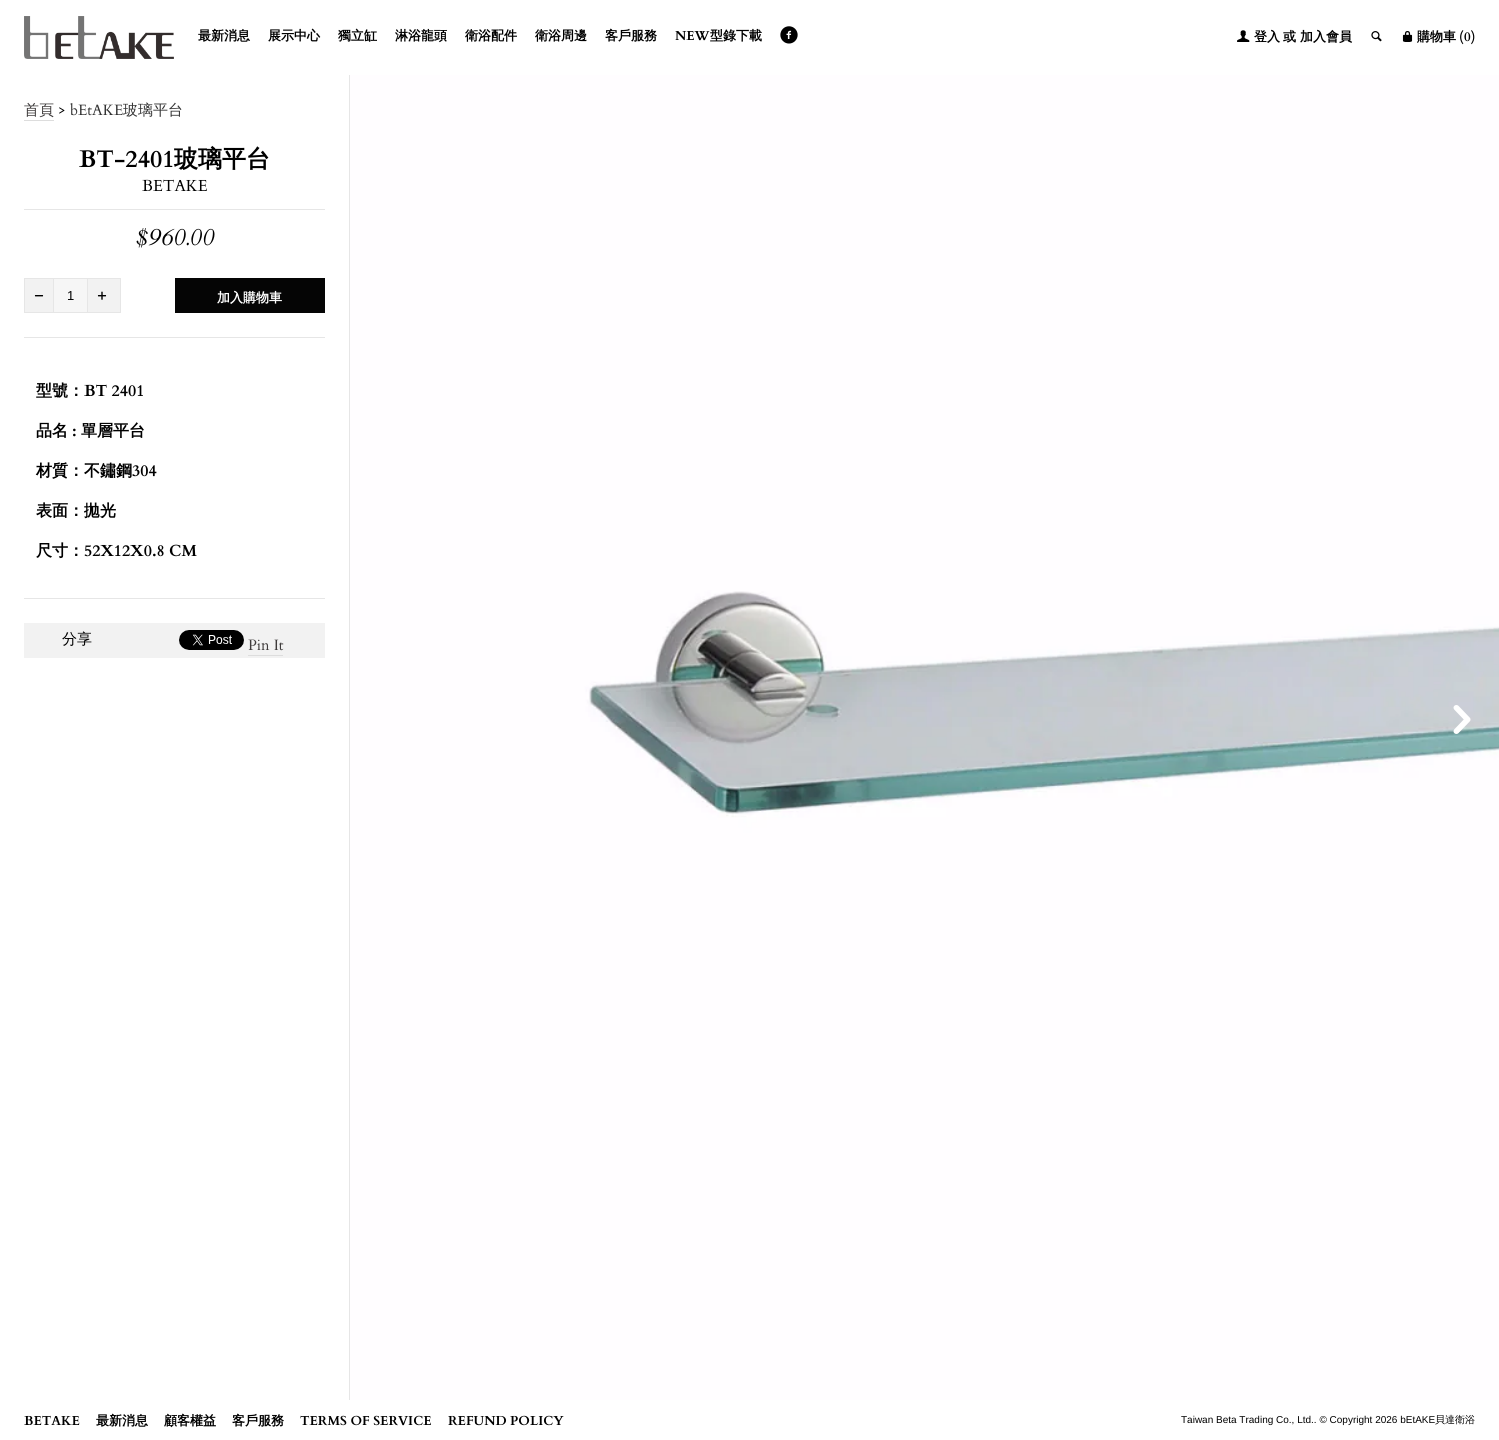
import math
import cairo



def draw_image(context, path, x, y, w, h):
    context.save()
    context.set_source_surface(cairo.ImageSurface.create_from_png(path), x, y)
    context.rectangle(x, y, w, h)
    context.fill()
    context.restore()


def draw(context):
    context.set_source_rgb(1, 1, 1)
    context.paint()
    draw_image(context, "images/1.png", 24, 16, 150, 43)
    draw_image(context, "images/2.png", 780, 26, 18, 18)
    draw_image(context, "images/3.png", 1237, 30, 13, 12)
    draw_image(context, "images/4.png", 1371, 31, 11, 11)
    draw_image(context, "images/5.png", 1402, 31, 11, 11)
    context.set_source_rgb(230 / 255, 230 / 255, 230 / 255)
    context.rectangle(349, 75, 1, 1325)
    context.fill()
    context.set_source_rgb(221 / 255, 221 / 255, 221 / 255)
    context.rectangle(24, 120, 30, 1)
    context.fill()
    context.set_source_rgb(230 / 255, 230 / 255, 230 / 255)
    context.rectangle(24, 209, 301, 1)
    context.fill()
    context.set_source_rgb(242 / 255, 242 / 255, 242 / 255)
    context.rectangle(24.5, 278.5, 96, 34)
    context.fill_preserve()
    context.set_source_rgb(230 / 255, 230 / 255, 230 / 255)
    context.set_line_width(1)
    context.stroke()
    draw_image(context, "images/6.png", 34, 295, 10, 2)
    context.set_source_rgb(246 / 255, 246 / 255, 246 / 255)
    context.rectangle(54, 279, 33, 33)
    context.fill()
    context.set_source_rgb(230 / 255, 230 / 255, 230 / 255)
    context.rectangle(87, 279, 1, 33)
    context.fill()
    context.rectangle(53, 279, 1, 33)
    context.fill()
    draw_image(context, "images/7.png", 97, 291, 10, 9)
    context.set_source_rgb(5 / 255, 5 / 255, 5 / 255)
    context.rectangle(175, 278, 150, 35)
    context.fill()
    context.set_source_rgb(230 / 255, 230 / 255, 230 / 255)
    context.rectangle(24, 337, 301, 1)
    context.fill()
    context.rectangle(24, 598, 301, 1)
    context.fill()
    context.set_source_rgb(242 / 255, 242 / 255, 242 / 255)
    context.rectangle(24, 623, 301, 35)
    context.fill()
    draw_image(context, "images/8.png", 179, 630, 65, 20)
    context.set_source_rgb(221 / 255, 221 / 255, 221 / 255)
    context.rectangle(248, 655, 35, 1)
    context.fill()
    draw_image(context, "images/9.png", 350, 75, 1149, 1325)
    draw_image(context, "images/10.png", 1453, 705, 18, 29)
    context.select_font_face("WenQuanYi Zen Hei", cairo.FontSlant.NORMAL, cairo.FontWeight.BOLD)
    context.set_font_size(13)
    context.set_source_rgb(0, 0, 0)
    context.move_to(198, 40)
    context.show_text("最新消息")
    context.move_to(268, 40)
    context.show_text("展示中心")
    context.move_to(338, 40)
    context.show_text("獨立缸")
    context.move_to(395, 40)
    context.show_text("淋浴龍頭")
    context.move_to(465, 40)
    context.show_text("衛浴配件")
    context.move_to(535, 40)
    context.show_text("衛浴周邊")
    context.move_to(605, 40)
    context.show_text("客戶服務")
    context.select_font_face("Cardo", cairo.FontSlant.NORMAL, cairo.FontWeight.BOLD)
    context.move_to(675, 40)
    context.show_text("NEW")
    context.select_font_face("WenQuanYi Zen Hei", cairo.FontSlant.NORMAL, cairo.FontWeight.BOLD)
    context.move_to(710, 40)
    context.show_text("型錄下載")
    context.move_to(1254, 41)
    context.show_text("登入")
    context.move_to(1283, 41)
    context.show_text("或")
    context.move_to(1300, 41)
    context.show_text("加入會員")
    context.move_to(1417, 41)
    context.show_text("購物車")
    context.select_font_face("Cardo", cairo.FontSlant.NORMAL, cairo.FontWeight.BOLD)
    context.move_to(1459, 41)
    context.show_text("(")
    context.move_to(1471, 41)
    context.show_text(")")
    context.move_to(1464, 41)
    context.show_text("0")
    context.select_font_face("WenQuanYi Zen Hei Medium")
    context.set_font_size(15)
    context.set_source_rgb(62 / 255, 59 / 255, 59 / 255)
    context.move_to(24, 115)
    context.show_text("首頁")
    context.select_font_face("Cardo")
    context.set_source_rgb(0, 0, 0)
    context.move_to(58, 115)
    context.show_text(">")
    context.set_source_rgb(51 / 255, 51 / 255, 51 / 255)
    context.move_to(70, 115)
    context.show_text("bEtAKE")
    context.select_font_face("WenQuanYi Zen Hei Medium")
    context.move_to(123, 115)
    context.show_text("玻璃平台")
    context.select_font_face("Cardo", cairo.FontSlant.NORMAL, cairo.FontWeight.BOLD)
    context.set_font_size(24)
    context.set_source_rgb(0, 0, 0)
    context.move_to(79, 167)
    context.show_text("BT-2401")
    context.select_font_face("WenQuanYi Zen Hei", cairo.FontSlant.NORMAL, cairo.FontWeight.BOLD)
    context.move_to(174, 167)
    context.show_text("玻璃平台")
    context.select_font_face("Cardo")
    context.set_font_size(16)
    context.move_to(142, 191)
    context.show_text("BETAKE")
    context.select_font_face("Cardo", cairo.FontSlant.ITALIC)
    context.set_font_size(24)
    context.move_to(136, 245)
    context.show_text("$960.00")
    context.select_font_face("Liberation Sans")
    context.set_font_size(13)
    context.move_to(67, 300)
    context.show_text("1")
    context.select_font_face("WenQuanYi Zen Hei", cairo.FontSlant.NORMAL, cairo.FontWeight.BOLD)
    context.set_source_rgb(1, 1, 1)
    context.move_to(217, 302)
    context.show_text("加入購物車")
    context.set_font_size(16)
    context.set_source_rgb(0, 0, 0)
    context.move_to(36, 396)
    context.show_text("型號：")
    context.select_font_face("Cardo", cairo.FontSlant.NORMAL, cairo.FontWeight.BOLD)
    context.move_to(84, 396)
    context.show_text("BT 2401")
    context.select_font_face("WenQuanYi Zen Hei", cairo.FontSlant.NORMAL, cairo.FontWeight.BOLD)
    context.move_to(36, 436)
    context.show_text("品名")
    context.select_font_face("Cardo", cairo.FontSlant.NORMAL, cairo.FontWeight.BOLD)
    context.move_to(72, 436)
    context.show_text(":")
    context.select_font_face("WenQuanYi Zen Hei", cairo.FontSlant.NORMAL, cairo.FontWeight.BOLD)
    context.move_to(81, 436)
    context.show_text("單層平台")
    context.move_to(36, 476)
    context.show_text("材質：不鏽鋼")
    context.select_font_face("Cardo", cairo.FontSlant.NORMAL, cairo.FontWeight.BOLD)
    context.move_to(132, 476)
    context.show_text("304")
    context.select_font_face("WenQuanYi Zen Hei", cairo.FontSlant.NORMAL, cairo.FontWeight.BOLD)
    context.move_to(36, 516)
    context.show_text("表面：拋光")
    context.move_to(36, 556)
    context.show_text("尺寸：")
    context.select_font_face("Cardo", cairo.FontSlant.NORMAL, cairo.FontWeight.BOLD)
    context.move_to(84, 556)
    context.show_text("52X12X0.8 CM")
    context.select_font_face("WenQuanYi Zen Hei Medium")
    context.set_font_size(15)
    context.move_to(62, 644)
    context.show_text("分享")
    context.select_font_face("Cardo")
    context.set_source_rgb(62 / 255, 59 / 255, 59 / 255)
    context.move_to(248, 650)
    context.show_text("Pin It")
    context.select_font_face("Cardo", cairo.FontSlant.NORMAL, cairo.FontWeight.BOLD)
    context.set_font_size(13)
    context.set_source_rgb(0, 0, 0)
    context.move_to(24, 1425)
    context.show_text("BETAKE")
    context.select_font_face("WenQuanYi Zen Hei", cairo.FontSlant.NORMAL, cairo.FontWeight.BOLD)
    context.move_to(96, 1425)
    context.show_text("最新消息")
    context.move_to(164, 1425)
    context.show_text("顧客權益")
    context.move_to(232, 1425)
    context.show_text("客戶服務")
    context.select_font_face("Cardo", cairo.FontSlant.NORMAL, cairo.FontWeight.BOLD)
    context.move_to(300, 1425)
    context.show_text("TERMS OF SERVICE")
    context.move_to(448, 1425)
    context.show_text("REFUND POLICY")
    context.select_font_face("Liberation Sans")
    context.set_font_size(10)
    context.move_to(1181, 1423)
    context.show_text("Taiwan Beta Trading Co., Ltd.. © Copyright 2026 bEtAKE")
    context.select_font_face("WenQuanYi Zen Hei Medium")
    context.move_to(1435, 1423)
    context.show_text("貝達衛浴")


surface = cairo.ImageSurface(cairo.Format.RGB24, 1499, 1440)
context = cairo.Context(surface)
options = cairo.FontOptions()
options.set_hint_metrics(cairo.HintMetrics.OFF)
options.set_hint_style(cairo.HintStyle.NONE)
context.set_font_options(options)
context.set_miter_limit(4)
draw(context)
surface.write_to_png("out.png")
